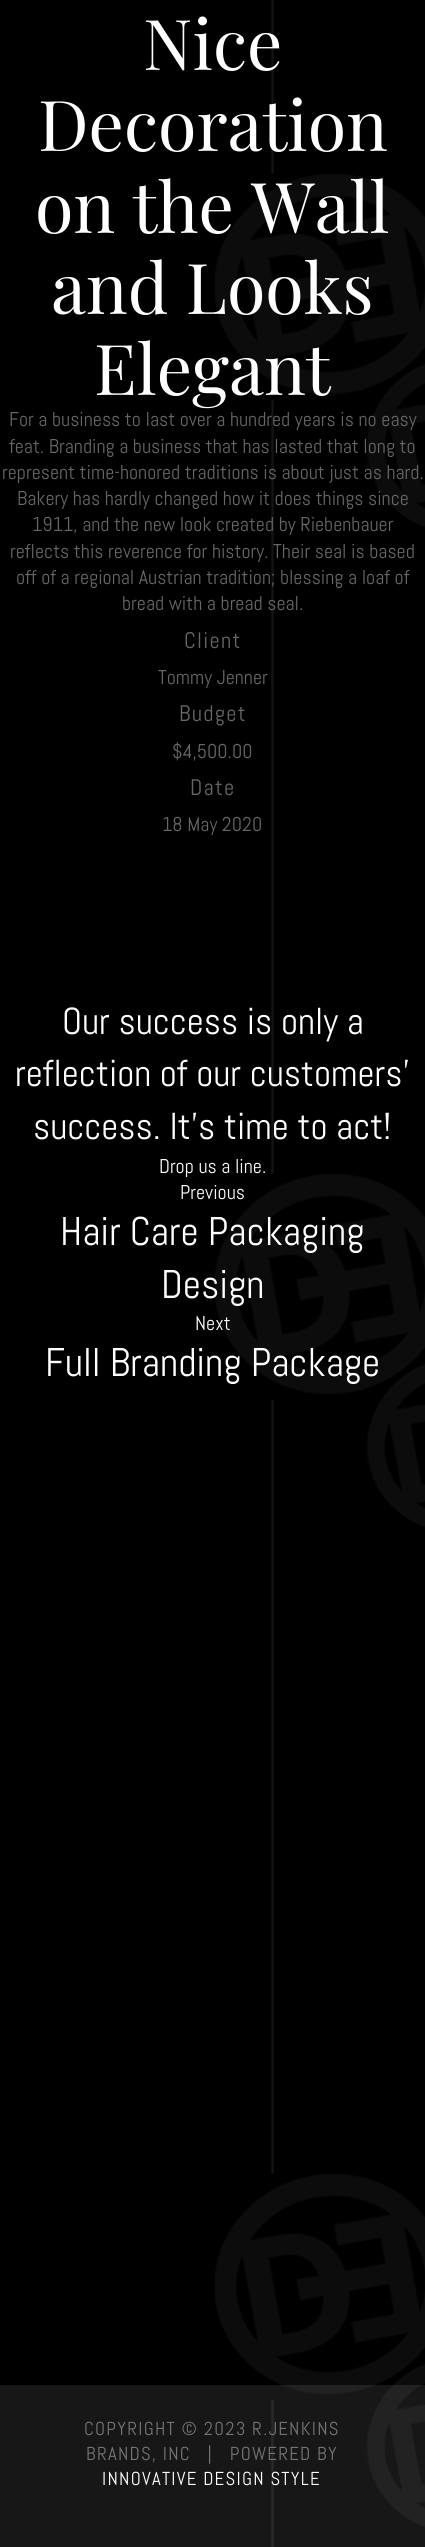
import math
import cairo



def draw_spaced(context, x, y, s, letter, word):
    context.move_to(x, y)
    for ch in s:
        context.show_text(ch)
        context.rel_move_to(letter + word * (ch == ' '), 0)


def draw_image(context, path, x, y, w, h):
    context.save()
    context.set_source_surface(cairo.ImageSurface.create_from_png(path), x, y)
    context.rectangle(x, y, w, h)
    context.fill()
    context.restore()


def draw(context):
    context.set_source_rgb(1, 1, 1)
    context.paint()
    draw_image(context, "images/1.png", 0, 0, 425, 2547)
    context.set_source_rgba(1, 1, 1, 0.09)
    context.rectangle(0, 2385, 425, 162)
    context.fill()
    context.select_font_face("Playfair Display")
    context.set_font_size(70)
    context.set_source_rgb(1, 1, 1)
    context.move_to(143, 70)
    context.show_text("Nice")
    context.move_to(38, 151)
    context.show_text("Decoration")
    context.move_to(35, 233)
    context.show_text("on the Wall")
    context.move_to(51, 314)
    context.show_text("and Looks")
    context.move_to(94, 395)
    context.show_text("Elegant")
    context.select_font_face("Abel")
    context.set_font_size(20)
    context.set_source_rgb(103 / 255, 103 / 255, 103 / 255)
    context.move_to(9, 426)
    context.show_text("For a business to last over a hundred years is no easy")
    context.move_to(9, 453)
    context.show_text("feat. Branding a business that has lasted that long to")
    context.move_to(2, 479)
    context.show_text("represent time-honored traditions is about just as hard.")
    context.move_to(17, 505)
    context.show_text("Bakery has hardly changed how it does things since")
    context.move_to(32, 531)
    context.show_text("1911, and the new look created by Riebenbauer")
    context.move_to(10, 558)
    context.show_text("reflects this reverence for history. Their seal is based")
    context.move_to(16, 584)
    context.show_text("off of a regional Austrian tradition; blessing a loaf of")
    context.move_to(122, 610)
    context.show_text("bread with a bread seal.")
    context.set_font_size(22.5)
    draw_spaced(context, 184, 648, "Client", 1.25, 0)
    context.set_font_size(20)
    context.move_to(158, 684)
    context.show_text("Tommy Jenner")
    context.set_font_size(22.5)
    draw_spaced(context, 179, 721, "Budget", 1.25, 0)
    context.set_font_size(20)
    context.move_to(172, 758)
    context.show_text("$4,500.00")
    context.set_font_size(22.5)
    draw_spaced(context, 190, 795, "Date", 1.25, 0)
    context.set_font_size(20)
    context.move_to(162, 831)
    context.show_text("18 May 2020")
    context.set_font_size(37.5)
    context.set_source_rgb(1, 1, 1)
    context.move_to(62, 1034)
    context.show_text("Our success is only a")
    context.move_to(15, 1086)
    context.show_text("reflection of our customers'")
    context.move_to(33, 1139)
    context.show_text("success. It's time to act!")
    context.set_font_size(20)
    context.move_to(159, 1173)
    context.show_text("Drop us a line.")
    context.move_to(180, 1199)
    context.show_text("Previous")
    context.set_font_size(40)
    context.move_to(60, 1245)
    context.show_text("Hair Care Packaging")
    context.move_to(161, 1298)
    context.show_text("Design")
    context.set_font_size(20)
    context.move_to(195, 1330)
    context.show_text("Next")
    context.set_font_size(40)
    context.move_to(45, 1376)
    context.show_text("Full Branding Package")
    context.set_font_size(18.75)
    context.set_source_rgb(116 / 255, 116 / 255, 116 / 255)
    draw_spaced(context, 84, 2435, "COPYRIGHT © 2023 R.JENKINS", 1.25, 0)
    draw_spaced(context, 86, 2460, "BRANDS, INC   |   POWERED BY", 1.25, 0)
    context.set_source_rgb(1, 1, 1)
    draw_spaced(context, 102, 2485, "INNOVATIVE DESIGN STYLE", 1.25, 0)


surface = cairo.ImageSurface(cairo.Format.RGB24, 425, 2547)
context = cairo.Context(surface)
options = cairo.FontOptions()
options.set_hint_metrics(cairo.HintMetrics.OFF)
options.set_hint_style(cairo.HintStyle.NONE)
context.set_font_options(options)
context.set_miter_limit(4)
draw(context)
surface.write_to_png("out.png")
